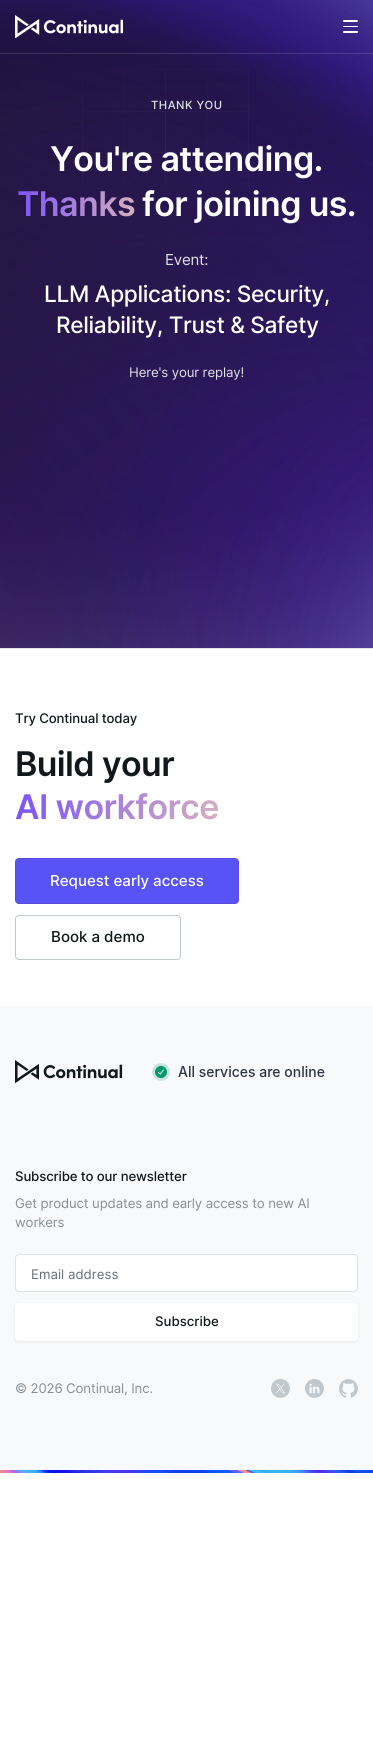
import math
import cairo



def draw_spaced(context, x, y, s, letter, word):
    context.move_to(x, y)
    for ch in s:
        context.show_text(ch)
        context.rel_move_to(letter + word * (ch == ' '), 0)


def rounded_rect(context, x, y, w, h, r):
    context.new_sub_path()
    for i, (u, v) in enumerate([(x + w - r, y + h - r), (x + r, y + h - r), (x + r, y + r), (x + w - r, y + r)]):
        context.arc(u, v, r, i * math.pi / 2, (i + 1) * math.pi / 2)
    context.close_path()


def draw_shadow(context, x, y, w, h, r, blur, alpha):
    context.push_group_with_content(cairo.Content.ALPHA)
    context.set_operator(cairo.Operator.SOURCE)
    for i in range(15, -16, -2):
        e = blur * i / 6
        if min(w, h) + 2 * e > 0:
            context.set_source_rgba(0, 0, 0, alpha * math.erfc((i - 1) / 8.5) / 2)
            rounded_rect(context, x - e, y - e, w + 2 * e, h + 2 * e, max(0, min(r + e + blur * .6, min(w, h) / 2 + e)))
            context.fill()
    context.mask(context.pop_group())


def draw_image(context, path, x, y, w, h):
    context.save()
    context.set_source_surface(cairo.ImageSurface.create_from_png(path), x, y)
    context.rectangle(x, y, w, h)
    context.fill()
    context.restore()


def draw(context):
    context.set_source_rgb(1, 1, 1)
    context.paint()
    draw_image(context, "images/2.png", 0, 0, 373, 648)
    draw_image(context, "images/1.png", 15, 15, 108, 23)
    context.set_source_rgb(1, 1, 1)
    rounded_rect(context, 343, 20, 15, 2, 1)
    context.fill()
    rounded_rect(context, 343, 26, 15, 1, 0.5)
    context.fill()
    rounded_rect(context, 343, 31, 15, 2, 1)
    context.fill()
    context.set_source_rgba(223 / 255, 227 / 255, 230 / 255, 0.16)
    context.rectangle(0, 53, 373, 1)
    context.fill()
    draw_image(context, "images/3.png", 82, 69, 167, 117)
    context.set_source_rgb(223 / 255, 227 / 255, 230 / 255)
    context.rectangle(0, 648, 373, 1)
    context.fill()
    context.set_source_rgb(87 / 255, 83 / 255, 247 / 255)
    rounded_rect(context, 15.5, 858.5, 223, 45, 3.5)
    context.fill_preserve()
    context.set_source_rgb(92 / 255, 76 / 255, 222 / 255)
    context.set_line_width(1)
    context.stroke()
    rounded_rect(context, 15.5, 915.5, 165, 44, 3.5)
    context.set_source_rgb(193 / 255, 200 / 255, 205 / 255)
    context.stroke()
    context.set_source_rgb(248 / 255, 249 / 255, 250 / 255)
    context.rectangle(0, 1006, 373, 464)
    context.fill()
    draw_image(context, "images/4.png", 15, 1060, 108, 23)
    draw_image(context, "images/5.png", 152, 1063, 173, 18)
    context.set_source_rgb(1, 1, 1)
    rounded_rect(context, 15.5, 1254.5, 342, 37, 3.5)
    context.fill_preserve()
    context.set_source_rgb(223 / 255, 227 / 255, 230 / 255)
    context.stroke()
    context.set_source_rgb(17 / 255, 24 / 255, 28 / 255)
    draw_shadow(context, 15, 1304, 343, 38, 4, 1.5, 0.08)
    context.set_source_rgb(1, 1, 1)
    rounded_rect(context, 15, 1303, 343, 38, 4)
    context.fill()
    draw_image(context, "images/6.png", 271, 1379, 19, 19)
    draw_image(context, "images/7.png", 305, 1379, 19, 19)
    draw_image(context, "images/8.png", 339, 1379, 19, 19)
    draw_image(context, "images/9.png", 0, 1470, 373, 3)
    context.select_font_face("Inter Medium")
    context.set_font_size(11.25)
    context.set_source_rgb(223 / 255, 227 / 255, 230 / 255)
    draw_spaced(context, 151, 109, "THANK YOU", 0.5, 0)
    context.select_font_face("Inter SemiBold")
    context.set_font_size(34)
    context.set_source_rgb(1, 1, 1)
    draw_spaced(context, 50, 171, "You're attending.", -0.6, 0)
    gradient = cairo.LinearGradient(17, 204, 135, 204)
    gradient.add_color_stop_rgba(0, 124 / 255, 84 / 255, 247 / 255, 1)
    gradient.add_color_stop_rgba(1, 213 / 255, 176 / 255, 190 / 255, 1)
    context.set_source(gradient)
    draw_spaced(context, 17, 216, "Thanks", -0.6, 0)
    context.set_source_rgb(1, 1, 1)
    draw_spaced(context, 142, 216, "for joining us.", -0.6, 0)
    context.select_font_face("Inter")
    context.set_font_size(15.1)
    context.set_source_rgb(223 / 255, 227 / 255, 230 / 255)
    draw_spaced(context, 165, 265, "Event:", -0.25, 0)
    context.select_font_face("Inter Medium")
    context.set_font_size(22.7)
    context.set_source_rgb(1, 1, 1)
    draw_spaced(context, 44, 302, "LLM Applications: Security,", -0.35, 0)
    draw_spaced(context, 56, 333, "Reliability, Trust & Safety", -0.35, 0)
    context.select_font_face("Inter")
    context.set_font_size(13.25)
    context.set_source_rgb(223 / 255, 227 / 255, 230 / 255)
    draw_spaced(context, 129, 377, "Here's your replay!", -0.15, 0)
    context.select_font_face("Inter Medium")
    context.set_source_rgb(17 / 255, 24 / 255, 28 / 255)
    draw_spaced(context, 15, 723, "Try Continual today", -0.15, 0)
    context.select_font_face("Inter SemiBold")
    context.set_font_size(34)
    draw_spaced(context, 15, 776, "Build your", -0.6, 0)
    gradient = cairo.LinearGradient(15, 806, 219, 806)
    gradient.add_color_stop_rgba(0, 124 / 255, 84 / 255, 247 / 255, 1)
    gradient.add_color_stop_rgba(1, 213 / 255, 176 / 255, 190 / 255, 1)
    context.set_source(gradient)
    draw_spaced(context, 15, 819, "AI workforce", -0.6, 0)
    context.select_font_face("Inter Medium")
    context.set_font_size(15.1)
    context.set_source_rgb(1, 1, 1)
    context.move_to(50, 886)
    context.show_text("Request early access")
    context.set_source_rgb(17 / 255, 24 / 255, 28 / 255)
    context.move_to(51, 942)
    context.show_text("Book a demo")
    context.set_font_size(13.25)
    draw_spaced(context, 15, 1181, "Subscribe to our newsletter", -0.15, 0)
    context.select_font_face("Inter")
    context.set_source_rgb(136 / 255, 144 / 255, 150 / 255)
    draw_spaced(context, 15, 1208, "Get product updates and early access to new AI", -0.15, 0)
    draw_spaced(context, 15, 1227, "workers", -0.15, 0)
    context.set_source_rgb(104 / 255, 112 / 255, 118 / 255)
    context.move_to(31, 1279)
    context.show_text("Email address")
    context.select_font_face("Inter Medium")
    context.set_source_rgb(17 / 255, 24 / 255, 28 / 255)
    context.move_to(155, 1326)
    context.show_text("Subscribe")
    context.select_font_face("Inter")
    context.set_source_rgb(136 / 255, 144 / 255, 150 / 255)
    draw_spaced(context, 15, 1393, "© 2026 Continual, Inc.", -0.15, 0)


surface = cairo.ImageSurface(cairo.Format.RGB24, 373, 1738)
context = cairo.Context(surface)
options = cairo.FontOptions()
options.set_hint_metrics(cairo.HintMetrics.OFF)
options.set_hint_style(cairo.HintStyle.NONE)
context.set_font_options(options)
context.set_miter_limit(4)
draw(context)
surface.write_to_png("out.png")
